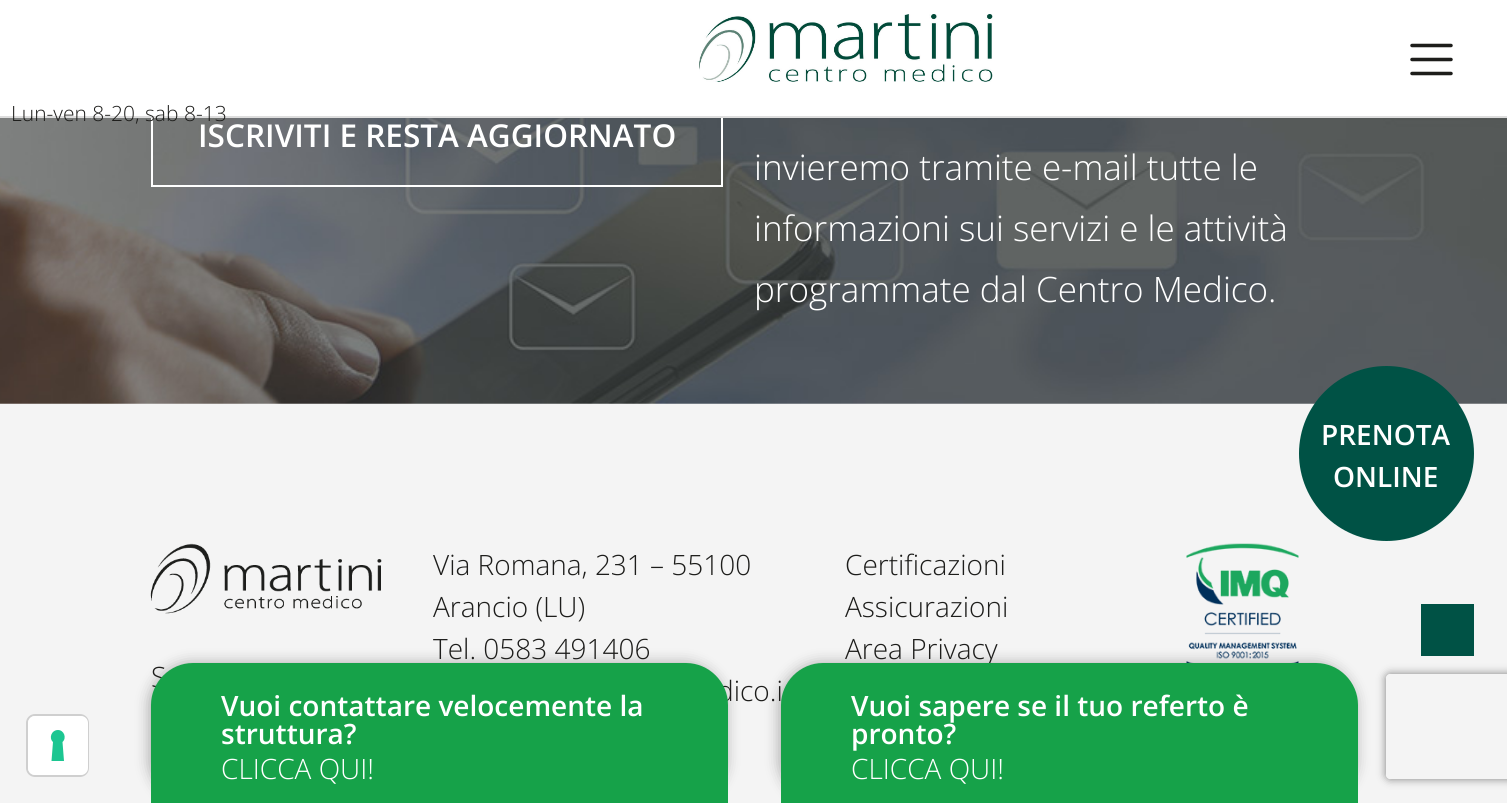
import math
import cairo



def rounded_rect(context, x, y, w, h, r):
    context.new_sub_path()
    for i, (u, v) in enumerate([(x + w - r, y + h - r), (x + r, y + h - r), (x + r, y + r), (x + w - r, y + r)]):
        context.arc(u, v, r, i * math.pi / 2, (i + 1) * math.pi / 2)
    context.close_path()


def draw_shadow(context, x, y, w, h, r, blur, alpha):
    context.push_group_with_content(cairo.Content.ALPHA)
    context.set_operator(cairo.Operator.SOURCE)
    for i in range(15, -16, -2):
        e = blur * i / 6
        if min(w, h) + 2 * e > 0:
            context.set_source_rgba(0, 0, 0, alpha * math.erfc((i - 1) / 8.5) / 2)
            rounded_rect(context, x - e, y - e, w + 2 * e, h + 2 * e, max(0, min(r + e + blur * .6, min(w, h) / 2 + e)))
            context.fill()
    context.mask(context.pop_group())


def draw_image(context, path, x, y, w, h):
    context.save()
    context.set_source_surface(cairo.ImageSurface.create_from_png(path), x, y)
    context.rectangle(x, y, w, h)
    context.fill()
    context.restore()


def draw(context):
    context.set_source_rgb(1, 1, 1)
    context.paint()
    draw_image(context, "images/2.png", 0, 118, 1507, 286)
    context.rectangle(152, 85, 570, 101)
    context.set_source_rgb(1, 1, 1)
    context.stroke()
    context.set_source_rgb(221 / 255, 221 / 255, 221 / 255)
    context.rectangle(0, 116, 1507, 2)
    context.fill()
    draw_image(context, "images/1.png", 699, 14, 294, 68)
    context.new_path()
    context.move_to(1412, 45.5)
    context.line_to(1451, 45.5)
    context.move_to(1412, 59.5)
    context.line_to(1451, 59.5)
    context.move_to(1412, 73.5)
    context.line_to(1451, 73.5)
    context.set_source_rgb(29 / 255, 29 / 255, 27 / 255)
    context.set_line_width(3.5)
    context.set_line_cap(cairo.LineCap.ROUND)
    context.stroke()
    context.set_source_rgb(244 / 255, 244 / 255, 244 / 255)
    context.rectangle(0, 404, 1507, 399)
    context.fill()
    draw_image(context, "images/3.png", 150, 543, 232, 71)
    draw_image(context, "images/4.png", 1186, 543, 113, 120)
    context.set_source_rgb(0, 82 / 255, 69 / 255)
    context.arc(1386.5, 453.5, 87.5, 0, 2 * math.pi)
    context.fill()
    context.rectangle(1421, 604, 53, 52)
    context.fill()
    rounded_rect(context, 27, 715, 61, 61, 8)
    context.set_source_rgb(207 / 255, 207 / 255, 207 / 255)
    context.set_line_width(2)
    context.set_line_cap(cairo.LineCap.BUTT)
    context.stroke()
    context.set_source_rgb(1, 1, 1)
    rounded_rect(context, 28, 716, 60, 59, 7)
    context.fill()
    context.set_source_rgb(28 / 255, 198 / 255, 145 / 255)
    context.set_fill_rule(cairo.FillRule.EVEN_ODD)
    context.new_path()
    context.move_to(58, 730)
    context.curve_to(64, 730, 67, 738, 62.5, 742)
    context.line_to(64, 761)
    context.line_to(51.5, 761)
    context.line_to(53, 742)
    context.curve_to(48.5, 738, 51.5, 730, 58, 730)
    context.close_path()
    context.fill()
    context.set_source_rgb(0, 0, 0)
    draw_shadow(context, 149, 663, 577, 140, 42, 7, 0.3)
    draw_shadow(context, 779, 663, 577, 140, 42, 7, 0.3)
    context.save()
    context.new_path()
    context.move_to(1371, 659)
    context.line_to(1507, 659)
    context.line_to(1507, 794)
    context.line_to(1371, 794)
    context.close_path()
    context.move_to(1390, 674)
    context.line_to(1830, 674)
    context.curve_to(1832, 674, 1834, 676, 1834, 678)
    context.line_to(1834, 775)
    context.curve_to(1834, 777, 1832, 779, 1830, 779)
    context.line_to(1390, 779)
    context.curve_to(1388, 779, 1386, 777, 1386, 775)
    context.line_to(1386, 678)
    context.curve_to(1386, 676, 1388, 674, 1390, 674)
    context.close_path()
    context.clip()
    context.set_source_rgb(128 / 255, 128 / 255, 128 / 255)
    draw_shadow(context, 1386, 674, 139, 105, 4, 4.5, 1)
    context.restore()
    context.select_font_face("Open Sans Light")
    context.set_font_size(21)
    context.set_source_rgb(29 / 255, 29 / 255, 27 / 255)
    context.move_to(11, 121)
    context.show_text("Lun-ven 8-20, sab 8-13")
    context.select_font_face("Open Sans SemiBold")
    context.set_font_size(31.5)
    context.set_source_rgb(1, 1, 1)
    context.move_to(198, 147)
    context.show_text("ISCRIVITI E RESTA AGGIORNATO")
    context.select_font_face("Open Sans Light")
    context.set_font_size(35)
    context.move_to(754, 180)
    context.show_text("invieremo tramite e-mail tutte le")
    context.move_to(754, 241)
    context.show_text("informazioni sui servizi e le attività")
    context.move_to(754, 302)
    context.show_text("programmate dal Centro Medico.")
    context.set_font_size(28)
    context.set_source_rgb(29 / 255, 29 / 255, 27 / 255)
    context.move_to(151, 687)
    context.show_text("S")
    context.move_to(433, 575)
    context.show_text("Via Romana, 231 – 55100")
    context.move_to(433, 617)
    context.show_text("Arancio (LU)")
    context.move_to(433, 659)
    context.show_text("Tel. 0583 491406")
    context.move_to(717, 701)
    context.show_text("dico.i")
    context.move_to(845, 575)
    context.show_text("Certificazioni")
    context.move_to(845, 617)
    context.show_text("Assicurazioni")
    context.move_to(845, 659)
    context.show_text("Area Privacy")
    context.select_font_face("Open Sans SemiBold")
    context.set_source_rgb(1, 1, 1)
    context.move_to(1321, 445)
    context.show_text("PRENOTA")
    context.move_to(1333, 487)
    context.show_text("ONLINE")
    context.set_source_rgb(22 / 255, 162 / 255, 73 / 255)
    context.new_path()
    context.move_to(193, 663)
    context.line_to(686, 663)
    context.curve_to(709, 663, 728, 682, 728, 705)
    context.line_to(728, 803)
    context.line_to(151, 803)
    context.line_to(151, 705)
    context.curve_to(151, 682, 170, 663, 193, 663)
    context.close_path()
    context.fill()
    context.set_source_rgb(1, 1, 1)
    context.move_to(221, 716)
    context.show_text("Vuoi contattare velocemente la")
    context.move_to(221, 744)
    context.show_text("struttura?")
    context.select_font_face("Open Sans Light")
    context.move_to(221, 779)
    context.show_text("CLICCA QUI!")
    context.set_source_rgb(22 / 255, 162 / 255, 73 / 255)
    context.new_path()
    context.move_to(823, 663)
    context.line_to(1316, 663)
    context.curve_to(1339, 663, 1358, 682, 1358, 705)
    context.line_to(1358, 803)
    context.line_to(781, 803)
    context.line_to(781, 705)
    context.curve_to(781, 682, 800, 663, 823, 663)
    context.close_path()
    context.fill()
    context.select_font_face("Open Sans SemiBold")
    context.set_source_rgb(1, 1, 1)
    context.move_to(851, 716)
    context.show_text("Vuoi sapere se il tuo referto è")
    context.move_to(851, 744)
    context.show_text("pronto?")
    context.select_font_face("Open Sans Light")
    context.move_to(851, 779)
    context.show_text("CLICCA QUI!")


surface = cairo.ImageSurface(cairo.Format.RGB24, 1507, 803)
context = cairo.Context(surface)
options = cairo.FontOptions()
options.set_hint_metrics(cairo.HintMetrics.OFF)
options.set_hint_style(cairo.HintStyle.NONE)
context.set_font_options(options)
context.set_miter_limit(4)
draw(context)
surface.write_to_png("out.png")
